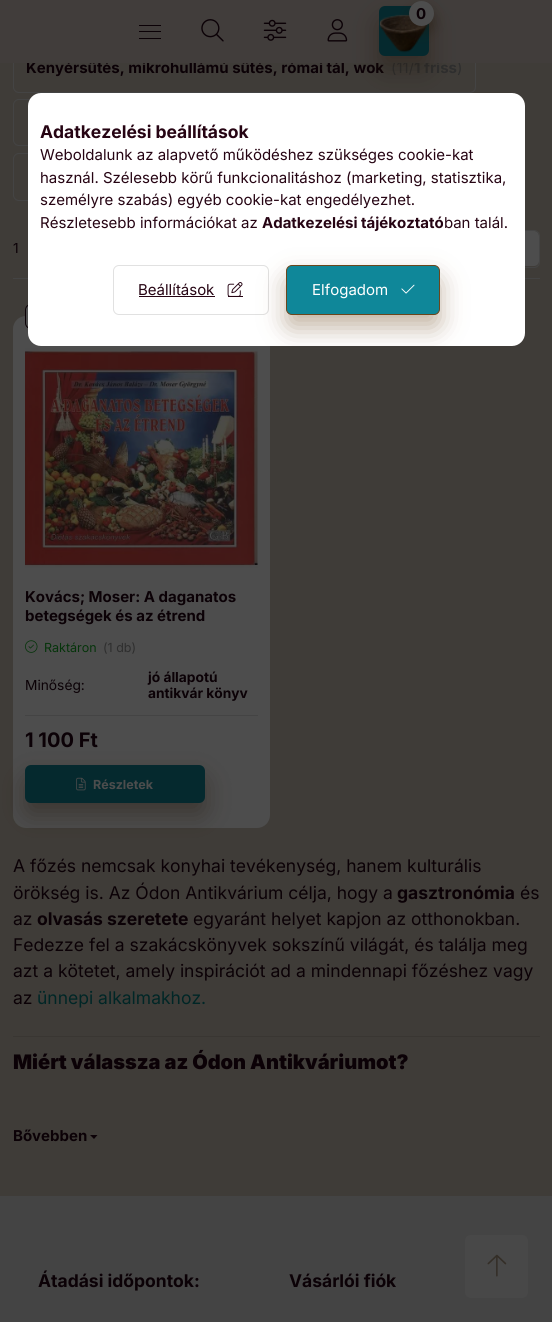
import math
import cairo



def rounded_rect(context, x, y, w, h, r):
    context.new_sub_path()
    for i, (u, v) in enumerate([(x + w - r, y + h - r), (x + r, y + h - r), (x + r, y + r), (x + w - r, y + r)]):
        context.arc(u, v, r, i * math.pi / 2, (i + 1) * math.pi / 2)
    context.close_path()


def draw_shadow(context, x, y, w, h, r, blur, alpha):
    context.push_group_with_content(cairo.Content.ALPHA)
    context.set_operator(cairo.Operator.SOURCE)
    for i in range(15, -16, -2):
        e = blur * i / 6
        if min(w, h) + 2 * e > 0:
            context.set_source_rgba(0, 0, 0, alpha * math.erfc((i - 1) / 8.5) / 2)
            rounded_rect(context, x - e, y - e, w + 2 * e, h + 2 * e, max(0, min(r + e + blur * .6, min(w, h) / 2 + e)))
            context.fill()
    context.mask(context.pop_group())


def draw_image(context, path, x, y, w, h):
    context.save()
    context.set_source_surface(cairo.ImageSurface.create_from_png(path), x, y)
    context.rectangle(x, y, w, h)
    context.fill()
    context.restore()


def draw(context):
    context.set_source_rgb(63 / 255, 60 / 255, 56 / 255)
    context.paint()
    rounded_rect(context, 13.5, 45.5, 462, 47, 5.5)
    context.set_source_rgb(68 / 255, 68 / 255, 68 / 255)
    context.set_line_width(1)
    context.stroke()
    rounded_rect(context, 13.5, 99.5, 227, 46, 5.5)
    context.stroke()
    rounded_rect(context, 13.5, 153.5, 191, 47, 5.5)
    context.stroke()
    context.rectangle(13, 278, 527, 1)
    context.fill()
    context.set_source_rgb(77 / 255, 77 / 255, 77 / 255)
    rounded_rect(context, 360, 231, 179, 35, 5)
    context.fill()
    rounded_rect(context, 359.5, 230.5, 180, 37, 5.5)
    context.set_source_rgb(68 / 255, 68 / 255, 68 / 255)
    context.stroke()
    context.set_source_rgb(77 / 255, 77 / 255, 77 / 255)
    rounded_rect(context, 13, 316, 257, 512, 13)
    context.fill()
    rounded_rect(context, 25.5, 304.5, 49, 24, 5.5)
    context.fill_preserve()
    context.set_source_rgb(11 / 255, 1 / 255, 6 / 255)
    context.stroke()
    draw_image(context, "images/5.png", 25, 348, 233, 220)
    draw_image(context, "images/6.png", 25, 640, 13, 13)
    context.set_source_rgb(68 / 255, 68 / 255, 68 / 255)
    context.rectangle(25, 715, 233, 1)
    context.fill()
    context.set_source_rgb(32 / 255, 21 / 255, 8 / 255)
    draw_shadow(context, 25, 778, 180, 37, 6, 12.5, 0.4)
    context.set_source_rgb(5 / 255, 41 / 255, 46 / 255)
    rounded_rect(context, 25, 765, 180, 38, 6)
    context.fill()
    draw_image(context, "images/7.png", 76, 777, 10, 14)
    context.set_source_rgb(57 / 255, 54 / 255, 50 / 255)
    context.rectangle(13, 1036, 527, 1)
    context.fill()
    context.set_source_rgb(11 / 255, 1 / 255, 6 / 255)
    context.new_path()
    context.move_to(90, 1135)
    context.line_to(97.5, 1135)
    context.line_to(94, 1139)
    context.close_path()
    context.fill()
    context.set_source_rgb(68 / 255, 68 / 255, 68 / 255)
    context.rectangle(0, 1196, 552, 126)
    context.fill()
    context.set_source_rgb(72 / 255, 72 / 255, 72 / 255)
    rounded_rect(context, 465, 1235, 63, 63, 6)
    context.fill()
    draw_image(context, "images/10.png", 487, 1254, 20, 23)
    context.select_font_face("Inter", cairo.FontSlant.NORMAL, cairo.FontWeight.BOLD)
    context.set_font_size(15)
    context.set_source_rgb(11 / 255, 1 / 255, 6 / 255)
    context.move_to(26, 73)
    context.show_text("Kenyérsütés, mikrohullámú sütés, római tál, wok")
    context.select_font_face("Inter")
    context.set_source_rgb(46 / 255, 46 / 255, 46 / 255)
    context.move_to(391, 73)
    context.show_text("(11/")
    context.select_font_face("Inter", cairo.FontSlant.NORMAL, cairo.FontWeight.BOLD)
    context.move_to(414, 73)
    context.show_text("1 friss")
    context.select_font_face("Inter")
    context.move_to(457, 73)
    context.show_text(")")
    context.set_source_rgb(65 / 255, 61 / 255, 59 / 255)
    context.rectangle(0, 0, 552, 63)
    context.fill()
    draw_image(context, "images/4.png", 327, 19, 21, 23)
    context.set_source_rgb(32 / 255, 21 / 255, 8 / 255)
    draw_shadow(context, 379, 19, 50, 50, 6, 12.5, 0.4)
    context.set_source_rgb(5 / 255, 41 / 255, 46 / 255)
    rounded_rect(context, 379, 6, 50, 50, 6)
    context.fill()
    draw_image(context, "images/1.png", 379, 14, 49, 39)
    context.set_source_rgb(32 / 255, 21 / 255, 8 / 255)
    draw_shadow(context, 409, 8, 25, 25, 12.5, 6, 0.4)
    context.set_source_rgb(77 / 255, 77 / 255, 77 / 255)
    context.arc(421.5, 13.5, 12.5, 0, 2 * math.pi)
    context.fill()
    context.select_font_face("Inter", cairo.FontSlant.NORMAL, cairo.FontWeight.BOLD)
    context.set_source_rgb(11 / 255, 1 / 255, 6 / 255)
    context.move_to(416, 19)
    context.show_text("0")
    draw_image(context, "images/3.png", 263, 19, 24, 22)
    draw_image(context, "images/2.png", 201, 19, 23, 23)
    context.rectangle(139, 38, 22, 1)
    context.fill()
    context.rectangle(139, 31, 22, 1)
    context.fill()
    context.rectangle(139, 25, 22, 1)
    context.fill()
    context.select_font_face("Inter")
    context.set_font_size(13.75)
    context.move_to(13, 253)
    context.show_text("1")
    context.select_font_face("Inter", cairo.FontSlant.NORMAL, cairo.FontWeight.BOLD)
    context.set_font_size(15)
    context.move_to(25, 602)
    context.show_text("Kovács; Moser: A daganatos")
    context.move_to(25, 621)
    context.show_text("betegségek és az étrend")
    context.select_font_face("Inter")
    context.set_font_size(12.5)
    context.set_source_rgb(5 / 255, 52 / 255, 10 / 255)
    context.move_to(44, 652)
    context.show_text("Raktáron")
    context.set_source_rgb(46 / 255, 46 / 255, 46 / 255)
    context.move_to(103, 652)
    context.show_text("(1 db)")
    context.set_font_size(13.75)
    context.set_source_rgb(11 / 255, 1 / 255, 6 / 255)
    context.move_to(25, 690)
    context.show_text("Minőség:")
    context.select_font_face("Inter", cairo.FontSlant.NORMAL, cairo.FontWeight.BOLD)
    context.move_to(148, 682)
    context.show_text("jó állapotú")
    context.move_to(148, 698)
    context.show_text("antikvár könyv")
    context.set_font_size(20)
    context.move_to(25, 747)
    context.show_text("1 100 Ft")
    context.set_font_size(12.5)
    context.set_source_rgb(77 / 255, 77 / 255, 77 / 255)
    context.move_to(93, 789)
    context.show_text("Részletek")
    context.select_font_face("Inter")
    context.set_font_size(17.5)
    context.set_source_rgb(11 / 255, 1 / 255, 6 / 255)
    context.move_to(13, 872)
    context.show_text("A főzés nemcsak konyhai tevékenység, hanem kulturális")
    context.move_to(13, 899)
    context.show_text("örökség is. Az Ódon Antikvárium célja, hogy a")
    context.select_font_face("Inter", cairo.FontSlant.NORMAL, cairo.FontWeight.BOLD)
    context.move_to(397, 899)
    context.show_text("gasztronómia")
    context.select_font_face("Inter")
    context.move_to(520, 899)
    context.show_text("és")
    context.move_to(13, 925)
    context.show_text("az")
    context.select_font_face("Inter", cairo.FontSlant.NORMAL, cairo.FontWeight.BOLD)
    context.move_to(37, 925)
    context.show_text("olvasás szeretete")
    context.select_font_face("Inter")
    context.move_to(193, 925)
    context.show_text("egyaránt helyet kapjon az otthonokban.")
    context.move_to(13, 951)
    context.show_text("Fedezze fel a szakácskönyvek sokszínű világát, és találja meg")
    context.move_to(13, 977)
    context.show_text("azt a kötetet, amely inspirációt ad a mindennapi főzéshez vagy")
    context.move_to(13, 1004)
    context.show_text("az")
    context.set_source_rgb(0, 38 / 255, 38 / 255)
    context.move_to(37, 1004)
    context.show_text("ünnepi alkalmakhoz.")
    context.select_font_face("Inter Black")
    context.set_font_size(20)
    context.set_source_rgb(11 / 255, 1 / 255, 6 / 255)
    context.move_to(13, 1069)
    context.show_text("Miért válassza az Ódon Antikváriumot?")
    context.select_font_face("Inter", cairo.FontSlant.NORMAL, cairo.FontWeight.BOLD)
    context.set_font_size(15)
    context.move_to(13, 1141)
    context.show_text("Bővebben")
    context.set_font_size(17.5)
    context.move_to(38, 1287)
    context.show_text("Átadási időpontok:")
    context.move_to(289, 1287)
    context.show_text("Vásárlói fiók")
    context.set_source_rgb(1, 1, 1)
    rounded_rect(context, 28, 93, 497, 253, 13)
    context.fill()
    context.set_source_rgb(38 / 255, 4 / 255, 19 / 255)
    context.move_to(40, 138)
    context.show_text("Adatkezelési beállítások")
    context.select_font_face("Inter")
    context.set_font_size(15)
    context.move_to(40, 160)
    context.show_text("Weboldalunk az alapvető működéshez szükséges cookie-kat")
    context.move_to(40, 183)
    context.show_text("használ. Szélesebb körű funkcionalitáshoz (marketing, statisztika,")
    context.move_to(40, 205)
    context.show_text("személyre szabás) egyéb cookie-kat engedélyezhet.")
    context.move_to(40, 228)
    context.show_text("Részletesebb információkat az")
    context.select_font_face("Inter", cairo.FontSlant.NORMAL, cairo.FontWeight.BOLD)
    context.move_to(262, 228)
    context.show_text("Adatkezelési tájékoztató")
    context.select_font_face("Inter")
    context.move_to(444, 228)
    context.show_text("ban talál.")
    rounded_rect(context, 113.5, 265.5, 155, 49, 5.5)
    context.set_source_rgb(225 / 255, 225 / 255, 225 / 255)
    context.stroke()
    context.set_source_rgb(38 / 255, 4 / 255, 19 / 255)
    context.move_to(138, 295)
    context.show_text("Beállítások")
    context.rectangle(139, 296, 76, 1)
    context.fill()
    draw_image(context, "images/8.png", 227, 282, 16, 14)
    context.rectangle(228, 296, 15, 1)
    context.fill()
    context.save()
    rounded_rect(context, 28, 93, 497, 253, 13)
    context.clip()
    context.set_source_rgb(107 / 255, 70 / 255, 28 / 255)
    draw_shadow(context, 286, 278, 154, 50, 6, 12.5, 0.4)
    context.restore()
    context.set_source_rgb(15 / 255, 135 / 255, 153 / 255)
    rounded_rect(context, 286.5, 265.5, 153, 49, 5.5)
    context.fill_preserve()
    context.set_source_rgb(107 / 255, 70 / 255, 28 / 255)
    context.stroke()
    context.set_source_rgb(1, 1, 1)
    context.move_to(312, 295)
    context.show_text("Elfogadom")
    draw_image(context, "images/9.png", 401, 284, 14, 10)


surface = cairo.ImageSurface(cairo.Format.RGB24, 552, 1322)
context = cairo.Context(surface)
options = cairo.FontOptions()
options.set_hint_metrics(cairo.HintMetrics.OFF)
options.set_hint_style(cairo.HintStyle.NONE)
context.set_font_options(options)
context.set_miter_limit(4)
draw(context)
surface.write_to_png("out.png")
